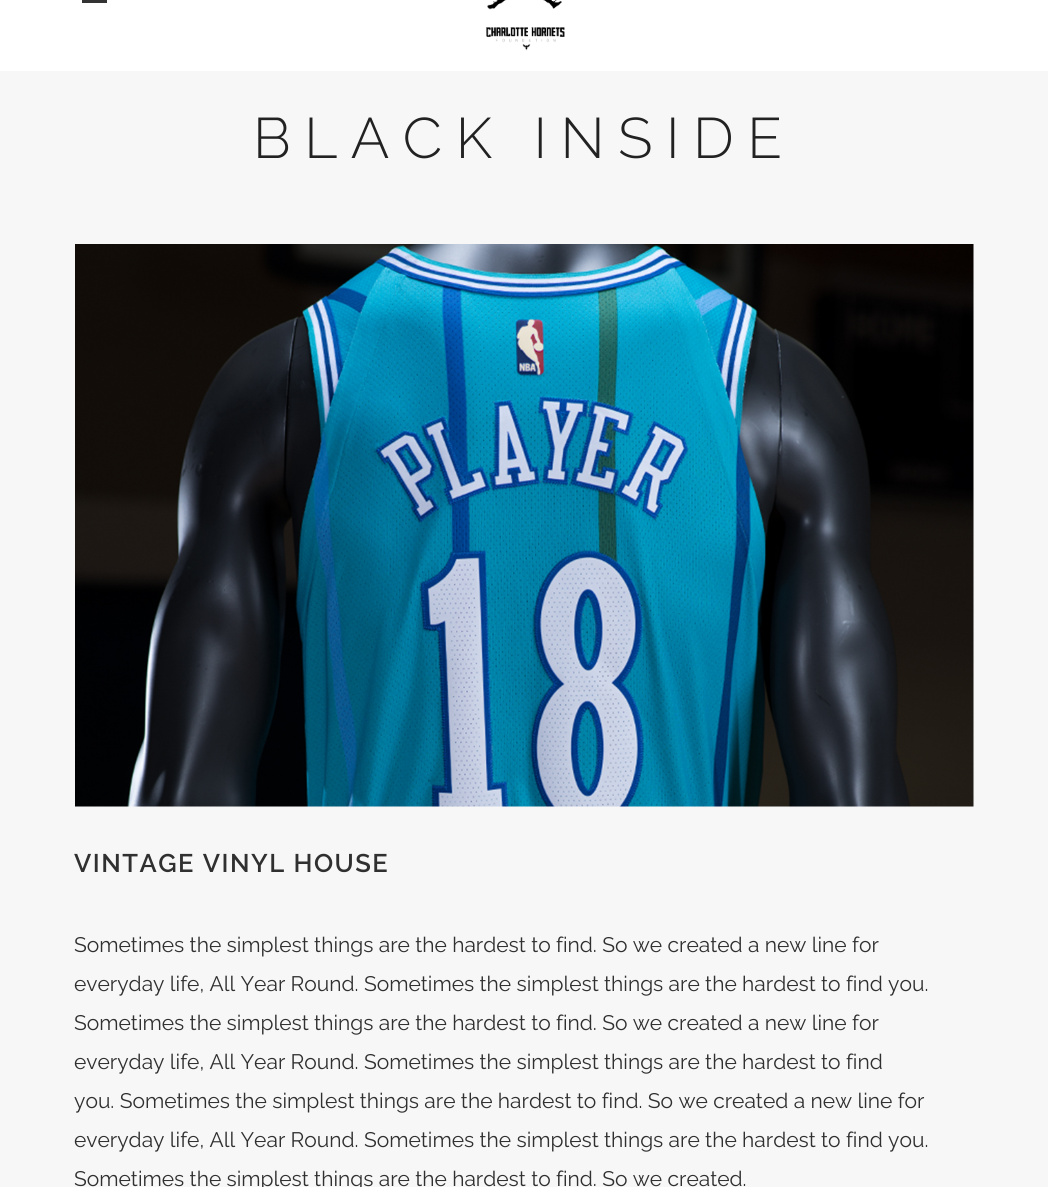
import math
import cairo



def draw_spaced(context, x, y, s, letter, word):
    context.move_to(x, y)
    for ch in s:
        context.show_text(ch)
        context.rel_move_to(letter + word * (ch == ' '), 0)


def draw_image(context, path, x, y, w, h):
    context.save()
    context.set_source_surface(cairo.ImageSurface.create_from_png(path), x, y)
    context.rectangle(x, y, w, h)
    context.fill()
    context.restore()


def draw(context):
    context.set_source_rgb(247 / 255, 247 / 255, 247 / 255)
    context.paint()
    context.set_source_rgb(1, 1, 1)
    context.rectangle(0, 0, 1048, 71)
    context.fill()
    context.set_source_rgb(51 / 255, 51 / 255, 51 / 255)
    context.rectangle(82, 0, 25, 3)
    context.fill()
    draw_image(context, "images/1.png", 486, 0, 79, 51)
    draw_image(context, "images/2.png", 75, 244, 899, 563)
    context.select_font_face("Raleway Light")
    context.set_font_size(57)
    context.set_source_rgb(34 / 255, 34 / 255, 34 / 255)
    draw_spaced(context, 253, 158, "BLACK INSIDE", 13.5, 0)
    context.select_font_face("Raleway SemiBold")
    context.set_font_size(25.5)
    context.set_source_rgb(48 / 255, 48 / 255, 48 / 255)
    draw_spaced(context, 74, 872, "VINTAGE VINYL HOUSE", 1.5, 0)
    context.select_font_face("Raleway")
    context.set_font_size(21)
    context.move_to(74, 952)
    context.show_text("Sometimes the simplest things are the hardest to find. So we created a new line for")
    context.move_to(74, 991)
    context.show_text("everyday life, All Year Round. Sometimes the simplest things are the hardest to find you.")
    context.move_to(74, 1030)
    context.show_text("Sometimes the simplest things are the hardest to find. So we created a new line for")
    context.move_to(74, 1069)
    context.show_text("everyday life, All Year Round. Sometimes the simplest things are the hardest to find")
    context.move_to(74, 1108)
    context.show_text("you. Sometimes the simplest things are the hardest to find. So we created a new line for")
    context.move_to(74, 1147)
    context.show_text("everyday life, All Year Round. Sometimes the simplest things are the hardest to find you.")
    context.move_to(74, 1186)
    context.show_text("Sometimes the simplest things are the hardest to find. So we created.")


surface = cairo.ImageSurface(cairo.Format.RGB24, 1048, 1187)
context = cairo.Context(surface)
options = cairo.FontOptions()
options.set_hint_metrics(cairo.HintMetrics.OFF)
options.set_hint_style(cairo.HintStyle.NONE)
context.set_font_options(options)
context.set_miter_limit(4)
draw(context)
surface.write_to_png("out.png")
